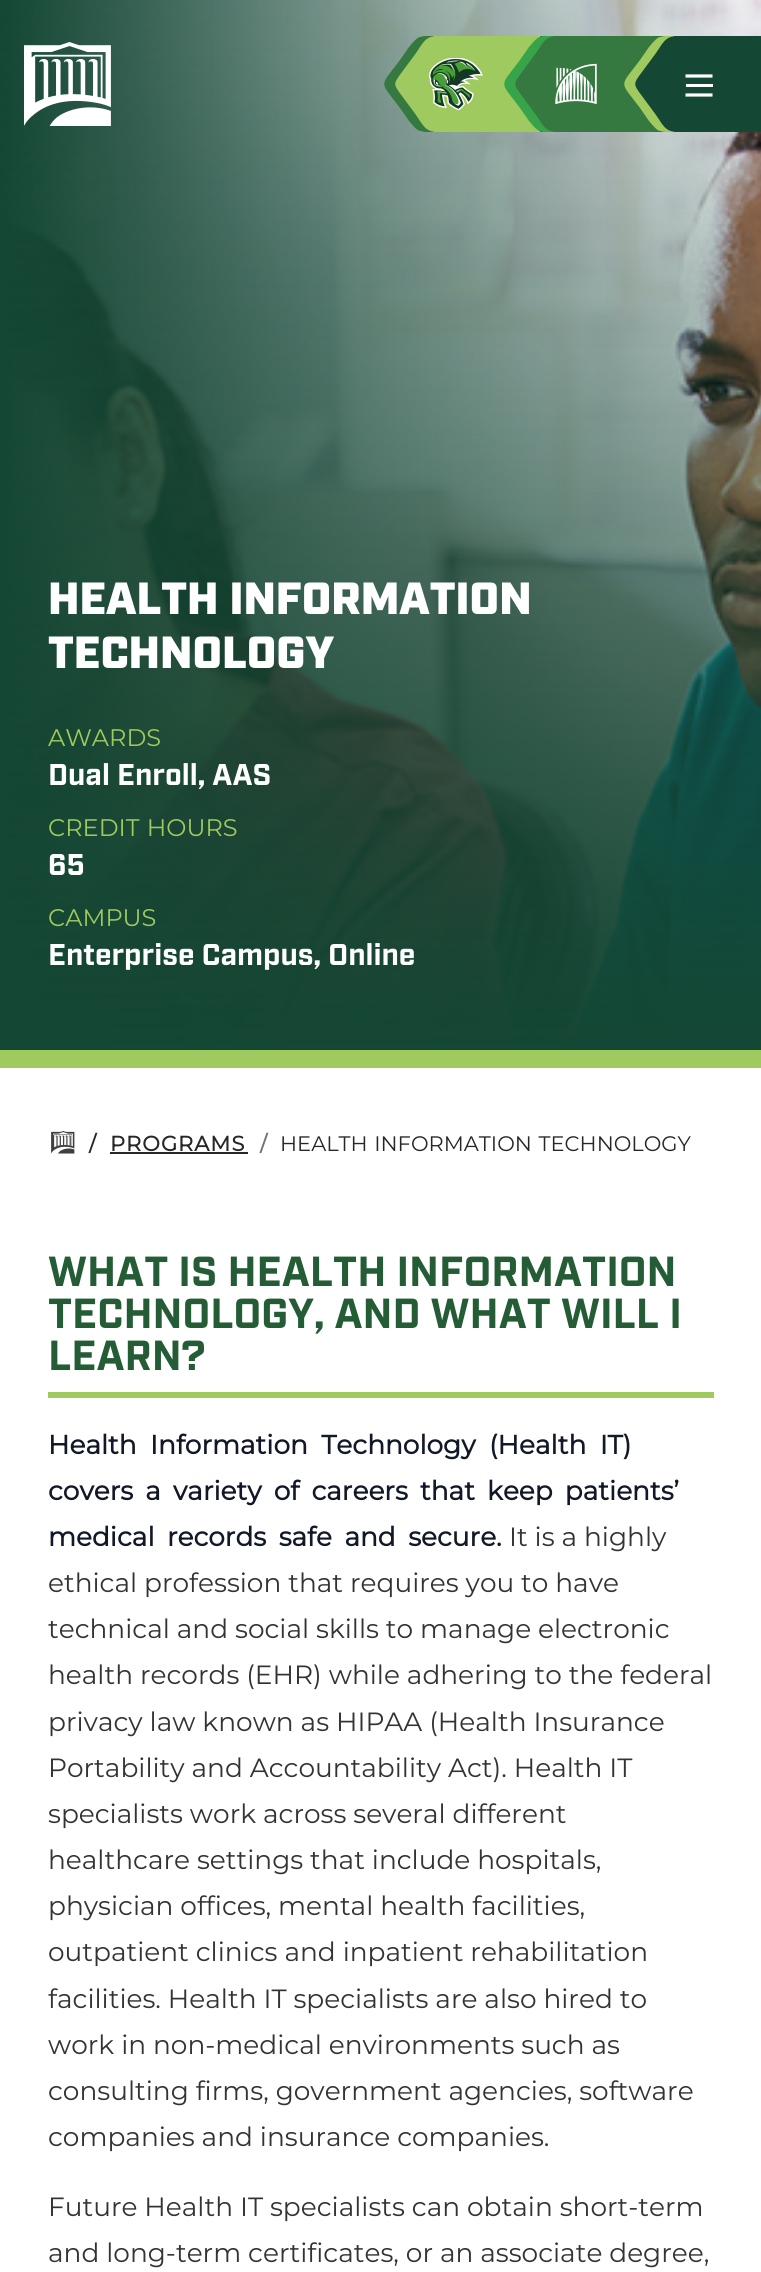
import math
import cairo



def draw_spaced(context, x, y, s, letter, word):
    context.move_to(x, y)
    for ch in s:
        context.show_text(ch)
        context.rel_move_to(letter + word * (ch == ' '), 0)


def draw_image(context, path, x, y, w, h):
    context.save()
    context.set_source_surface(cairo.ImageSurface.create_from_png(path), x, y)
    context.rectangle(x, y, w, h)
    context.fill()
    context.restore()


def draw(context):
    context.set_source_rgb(1, 1, 1)
    context.paint()
    draw_image(context, "images/4.png", 0, 0, 761, 1050)
    draw_image(context, "images/1.png", 24, 42, 87, 84)
    context.set_source_rgb(159 / 255, 202 / 255, 95 / 255)
    context.rectangle(420, 36, 120, 96)
    context.fill()
    context.set_source_rgb(53 / 255, 120 / 255, 64 / 255)
    context.new_path()
    context.move_to(434, 132)
    context.curve_to(419, 132, 419, 133, 409, 121)
    context.line_to(400, 108)
    context.curve_to(379, 80, 379, 88, 400, 60)
    context.line_to(409, 47)
    context.curve_to(419, 35, 419, 36, 434, 36)
    context.close_path()
    context.fill()
    context.set_source_rgb(159 / 255, 202 / 255, 95 / 255)
    context.new_path()
    context.move_to(438, 132)
    context.curve_to(425, 132, 423, 125, 416, 115)
    context.line_to(402, 96)
    context.curve_to(393, 84, 393, 84, 402, 72)
    context.line_to(416, 53)
    context.curve_to(423, 43, 425, 36, 438, 36)
    context.close_path()
    context.fill()
    draw_image(context, "images/2.png", 429, 58, 54, 52)
    context.set_source_rgb(53 / 255, 120 / 255, 64 / 255)
    context.rectangle(540, 36, 120, 96)
    context.fill()
    context.set_source_rgb(56 / 255, 164 / 255, 73 / 255)
    context.new_path()
    context.move_to(554, 132)
    context.curve_to(539, 132, 539, 133, 529, 121)
    context.line_to(520, 108)
    context.curve_to(499, 80, 499, 88, 520, 60)
    context.line_to(529, 47)
    context.curve_to(539, 35, 539, 36, 554, 36)
    context.close_path()
    context.fill()
    context.set_source_rgb(53 / 255, 120 / 255, 64 / 255)
    context.new_path()
    context.move_to(558, 132)
    context.curve_to(545, 132, 543, 125, 536, 115)
    context.line_to(522, 96)
    context.curve_to(513, 84, 513, 84, 522, 72)
    context.line_to(536, 53)
    context.curve_to(543, 43, 545, 36, 558, 36)
    context.close_path()
    context.fill()
    draw_image(context, "images/3.png", 555, 63, 42, 42)
    context.set_source_rgb(20 / 255, 71 / 255, 52 / 255)
    context.rectangle(660, 36, 101, 96)
    context.fill()
    context.set_source_rgb(159 / 255, 202 / 255, 95 / 255)
    context.new_path()
    context.move_to(674, 132)
    context.curve_to(659, 132, 659, 133, 649, 121)
    context.line_to(640, 108)
    context.curve_to(619, 80, 619, 88, 640, 60)
    context.line_to(649, 47)
    context.curve_to(659, 35, 659, 36, 674, 36)
    context.close_path()
    context.fill()
    context.set_source_rgb(20 / 255, 71 / 255, 52 / 255)
    context.new_path()
    context.move_to(678, 132)
    context.curve_to(665, 132, 663, 125, 656, 115)
    context.line_to(642, 96)
    context.curve_to(633, 84, 633, 84, 642, 72)
    context.line_to(656, 53)
    context.curve_to(663, 43, 665, 36, 678, 36)
    context.close_path()
    context.fill()
    context.new_path()
    context.move_to(712.5, 76)
    context.line_to(685.5, 76)
    context.set_source_rgb(1, 1, 1)
    context.set_line_width(3.2)
    context.stroke()
    context.rectangle(686, 84, 27, 3)
    context.fill()
    context.new_path()
    context.move_to(712.5, 95)
    context.line_to(685.5, 95)
    context.stroke()
    context.set_source_rgb(159 / 255, 202 / 255, 95 / 255)
    context.rectangle(0, 1050, 761, 18)
    context.fill()
    draw_image(context, "images/5.png", 51, 1131, 24, 23)
    context.set_source_rgb(39 / 255, 39 / 255, 42 / 255)
    context.rectangle(110, 1152, 138, 2)
    context.fill()
    context.set_source_rgb(159 / 255, 202 / 255, 95 / 255)
    context.rectangle(48, 1392, 666, 6)
    context.fill()
    context.select_font_face("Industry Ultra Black")
    context.set_font_size(45)
    context.set_source_rgb(1, 1, 1)
    context.move_to(48, 614)
    context.show_text("HEALTH INFORMATION")
    context.move_to(48, 668)
    context.show_text("TECHNOLOGY")
    context.select_font_face("Montserrat")
    context.set_font_size(24)
    context.set_source_rgb(159 / 255, 202 / 255, 95 / 255)
    context.move_to(48, 746)
    context.show_text("AWARDS")
    context.select_font_face("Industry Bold", cairo.FontSlant.NORMAL, cairo.FontWeight.BOLD)
    context.set_font_size(30)
    context.set_source_rgb(1, 1, 1)
    context.move_to(48, 785)
    context.show_text("Dual Enroll, AAS")
    context.select_font_face("Montserrat")
    context.set_font_size(24)
    context.set_source_rgb(159 / 255, 202 / 255, 95 / 255)
    draw_spaced(context, 48, 836, "CREDIT HOURS", 0, 1)
    context.select_font_face("Industry Bold", cairo.FontSlant.NORMAL, cairo.FontWeight.BOLD)
    context.set_font_size(30)
    context.set_source_rgb(1, 1, 1)
    context.move_to(48, 875)
    context.show_text("65")
    context.select_font_face("Montserrat")
    context.set_font_size(24)
    context.set_source_rgb(159 / 255, 202 / 255, 95 / 255)
    context.move_to(48, 926)
    context.show_text("CAMPUS")
    context.select_font_face("Industry Bold", cairo.FontSlant.NORMAL, cairo.FontWeight.BOLD)
    context.set_font_size(30)
    context.set_source_rgb(1, 1, 1)
    context.move_to(48, 965)
    context.show_text("Enterprise Campus, Online")
    context.select_font_face("Montserrat", cairo.FontSlant.NORMAL, cairo.FontWeight.BOLD)
    context.set_font_size(21)
    context.set_source_rgb(39 / 255, 39 / 255, 42 / 255)
    context.move_to(89, 1151)
    context.show_text("/")
    draw_spaced(context, 110, 1151, "PROGRAMS", 1, 0)
    context.set_source_rgb(113 / 255, 113 / 255, 122 / 255)
    context.move_to(260, 1151)
    context.show_text("/")
    context.select_font_face("Montserrat")
    context.set_source_rgb(39 / 255, 39 / 255, 42 / 255)
    draw_spaced(context, 280, 1151, "HEALTH INFORMATION TECHNOLOGY", 0, 1)
    context.select_font_face("Industry Bold", cairo.FontSlant.NORMAL, cairo.FontWeight.BOLD)
    context.set_font_size(42)
    context.set_source_rgb(35 / 255, 92 / 255, 53 / 255)
    context.move_to(48, 1286)
    context.show_text("WHAT IS HEALTH INFORMATION")
    context.move_to(48, 1328)
    context.show_text("TECHNOLOGY, AND WHAT WILL I")
    context.move_to(48, 1370)
    context.show_text("LEARN?")
    context.select_font_face("Montserrat", cairo.FontSlant.NORMAL, cairo.FontWeight.BOLD)
    context.set_font_size(26.4)
    context.set_source_rgb(17 / 255, 24 / 255, 39 / 255)
    draw_spaced(context, 48, 1454, "Health Information Technology (Health IT)", 0, 6.5)
    draw_spaced(context, 48, 1500, "covers a variety of careers that keep patients’", 0, 5.25)
    draw_spaced(context, 48, 1546, "medical records safe and secure.", 0, 5.5)
    context.select_font_face("Montserrat")
    context.set_source_rgb(51 / 255, 51 / 255, 51 / 255)
    context.move_to(509, 1546)
    context.show_text("It is a highly")
    context.move_to(48, 1592)
    context.show_text("ethical profession that requires you to have")
    context.move_to(48, 1638)
    context.show_text("technical and social skills to manage electronic")
    context.move_to(48, 1684)
    context.show_text("health records (EHR) while adhering to the federal")
    context.move_to(48, 1731)
    context.show_text("privacy law known as HIPAA (Health Insurance")
    context.move_to(48, 1777)
    context.show_text("Portability and Accountability Act). Health IT")
    context.move_to(48, 1823)
    context.show_text("specialists work across several different")
    context.move_to(48, 1869)
    context.show_text("healthcare settings that include hospitals,")
    context.move_to(48, 1915)
    context.show_text("physician offices, mental health facilities,")
    context.move_to(48, 1961)
    context.show_text("outpatient clinics and inpatient rehabilitation")
    context.move_to(48, 2008)
    context.show_text("facilities. Health IT specialists are also hired to")
    context.move_to(48, 2054)
    context.show_text("work in non-medical environments such as")
    context.move_to(48, 2100)
    context.show_text("consulting firms, government agencies, software")
    context.move_to(48, 2146)
    context.show_text("companies and insurance companies.")
    context.move_to(48, 2216)
    context.show_text("Future Health IT specialists can obtain short-term")
    context.move_to(48, 2262)
    context.show_text("and long-term certificates, or an associate degree,")


surface = cairo.ImageSurface(cairo.Format.RGB24, 761, 2272)
context = cairo.Context(surface)
options = cairo.FontOptions()
options.set_hint_metrics(cairo.HintMetrics.OFF)
options.set_hint_style(cairo.HintStyle.NONE)
context.set_font_options(options)
context.set_miter_limit(4)
draw(context)
surface.write_to_png("out.png")
